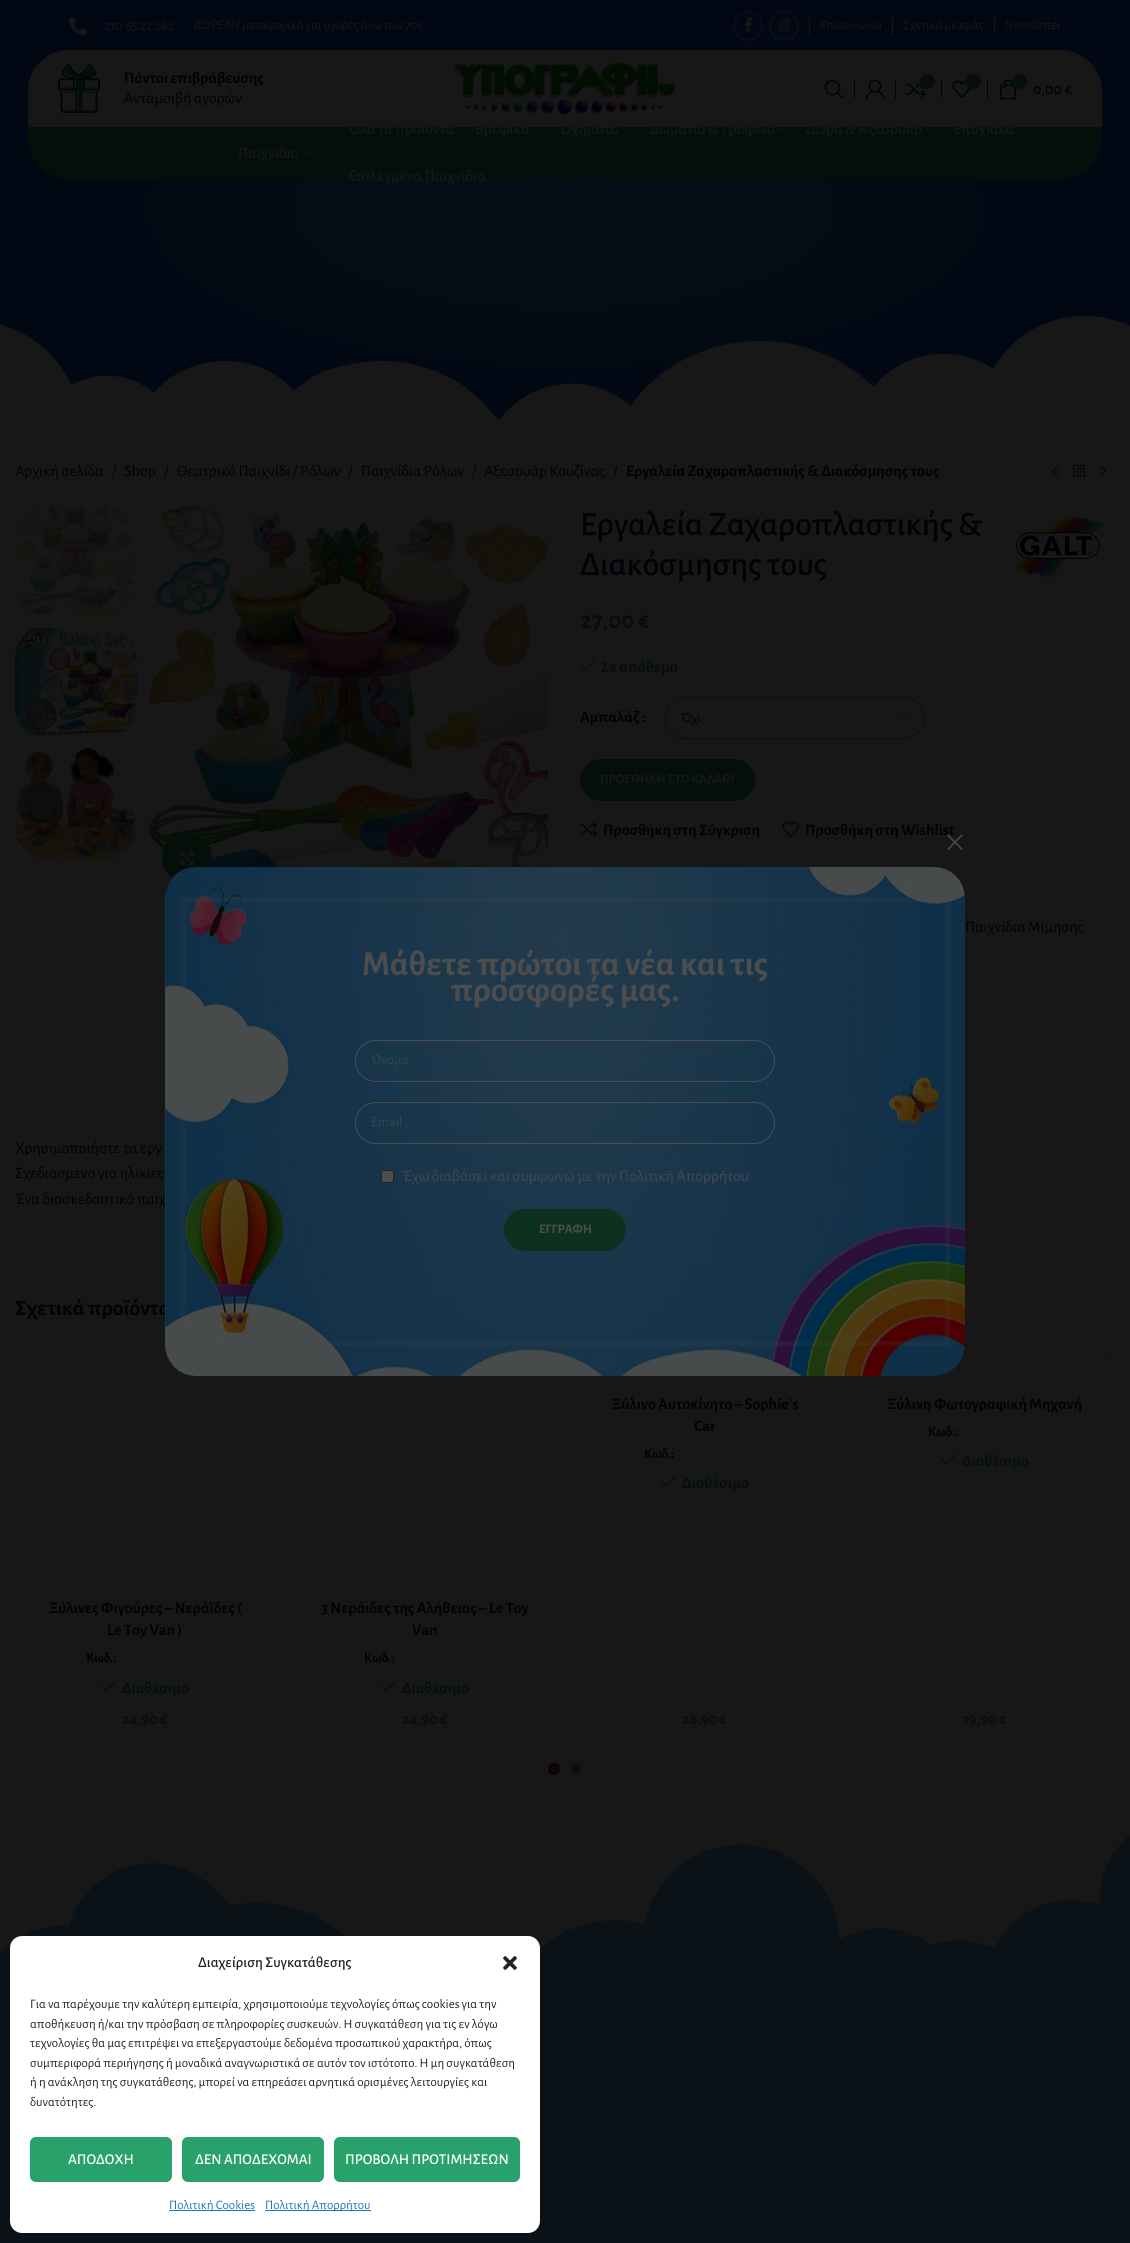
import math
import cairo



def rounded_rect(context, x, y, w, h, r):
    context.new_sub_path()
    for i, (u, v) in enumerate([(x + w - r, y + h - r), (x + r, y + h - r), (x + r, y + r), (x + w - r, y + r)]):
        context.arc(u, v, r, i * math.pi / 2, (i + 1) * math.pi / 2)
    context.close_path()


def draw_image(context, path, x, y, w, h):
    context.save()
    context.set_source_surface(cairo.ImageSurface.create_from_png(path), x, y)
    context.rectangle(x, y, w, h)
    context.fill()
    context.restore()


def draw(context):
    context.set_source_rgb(23 / 255, 23 / 255, 23 / 255)
    context.paint()
    context.set_source_rgb(1 / 255, 8 / 255, 19 / 255)
    context.rectangle(0, 0, 1130, 10)
    context.fill()
    draw_image(context, "images/1.png", 0, 10, 1130, 409)
    draw_image(context, "images/2.png", 69, 17, 18, 18)
    context.arc(748, 26, 14, 0, 2 * math.pi)
    context.set_source_rgba(23 / 255, 23 / 255, 23 / 255, 0.4)
    context.stroke()
    draw_image(context, "images/3.png", 744, 17, 9, 15)
    context.arc(784, 26, 14, 0, 2 * math.pi)
    context.stroke()
    draw_image(context, "images/4.png", 778, 18, 13, 13)
    context.set_source_rgb(23 / 255, 23 / 255, 23 / 255)
    context.rectangle(809, 17, 1, 18)
    context.fill()
    context.rectangle(892, 17, 1, 18)
    context.fill()
    context.rectangle(994, 17, 1, 18)
    context.fill()
    context.new_path()
    context.move_to(69, 50)
    context.line_to(1061, 50)
    context.curve_to(1083.5, 50, 1102, 68.5, 1102, 91)
    context.line_to(1102, 127)
    context.line_to(28, 127)
    context.line_to(28, 91)
    context.curve_to(28, 68.5, 46.5, 50, 69, 50)
    context.close_path()
    context.fill()
    draw_image(context, "images/5.png", 58, 64, 42, 49)
    draw_image(context, "images/6.png", 453, 62, 223, 53)
    draw_image(context, "images/7.png", 824, 79, 20, 20)
    context.set_source_rgb(0, 2 / 255, 7 / 255)
    context.rectangle(854, 80, 1, 18)
    context.fill()
    draw_image(context, "images/8.png", 865, 79, 20, 20)
    context.rectangle(895, 80, 1, 18)
    context.fill()
    draw_image(context, "images/9.png", 906, 83, 20, 15)
    context.set_source_rgb(4 / 255, 15 / 255, 10 / 255)
    context.arc(927.5, 81.5, 7.5, 0, 2 * math.pi)
    context.fill()
    context.set_source_rgb(0, 2 / 255, 7 / 255)
    context.rectangle(941, 80, 1, 18)
    context.fill()
    draw_image(context, "images/10.png", 952, 80, 20, 18)
    context.set_source_rgb(4 / 255, 15 / 255, 10 / 255)
    context.arc(973.5, 81.5, 7.5, 0, 2 * math.pi)
    context.fill()
    context.set_source_rgb(0, 2 / 255, 7 / 255)
    context.rectangle(987, 80, 1, 18)
    context.fill()
    draw_image(context, "images/11.png", 999, 79, 18, 21)
    context.set_source_rgb(4 / 255, 15 / 255, 10 / 255)
    context.arc(1019.5, 81.5, 7.5, 0, 2 * math.pi)
    context.fill()
    context.new_path()
    context.move_to(28, 127)
    context.line_to(1102, 127)
    context.line_to(1102, 138)
    context.curve_to(1102, 160.5, 1083.5, 179, 1061, 179)
    context.line_to(69, 179)
    context.curve_to(46.5, 179, 28, 160.5, 28, 138)
    context.close_path()
    context.fill()
    draw_image(context, "images/12.png", 303, 150, 11, 6)
    draw_image(context, "images/13.png", 533, 127, 8, 5)
    draw_image(context, "images/13.png", 622, 127, 8, 5)
    draw_image(context, "images/13.png", 778, 127, 8, 5)
    draw_image(context, "images/13.png", 926, 127, 8, 5)
    draw_image(context, "images/13.png", 1019, 127, 8, 5)
    draw_image(context, "images/14.png", 1052, 465, 7, 12)
    draw_image(context, "images/15.png", 1073, 464, 12, 13)
    draw_image(context, "images/16.png", 1100, 465, 7, 12)
    draw_image(context, "images/17.png", 15, 505, 122, 111)
    draw_image(context, "images/18.png", 15, 626, 122, 111)
    draw_image(context, "images/19.png", 15, 747, 122, 112)
    draw_image(context, "images/20.png", 147, 505, 403, 391)
    context.arc(187, 858, 25, 0, 2 * math.pi)
    context.fill()
    draw_image(context, "images/21.png", 180, 851, 14, 14)
    draw_image(context, "images/22.png", 1015, 515, 90, 64)
    draw_image(context, "images/23.png", 580, 659, 16, 12)
    context.new_path()
    context.move_to(900.5, 715.5)
    context.line_to(904.5, 720)
    context.line_to(909, 715.5)
    context.set_source_rgb(17 / 255, 17 / 255, 17 / 255)
    context.set_line_width(1.4)
    context.stroke()
    rounded_rect(context, 665.5, 697.5, 259, 41, 20.5)
    context.set_source_rgb(14 / 255, 14 / 255, 14 / 255)
    context.set_line_width(1)
    context.stroke()
    context.set_source_rgb(4 / 255, 15 / 255, 10 / 255)
    rounded_rect(context, 580, 759, 175, 42, 21)
    context.fill()
    draw_image(context, "images/24.png", 580, 821, 18, 16)
    draw_image(context, "images/25.png", 782, 821, 18, 16)
    context.set_source_rgb(20 / 255, 20 / 255, 20 / 255)
    context.rectangle(580, 859, 535, 1)
    context.fill()
    context.rectangle(0, 1045, 1130, 1)
    context.fill()
    context.rectangle(0, 1252, 1130, 1)
    context.fill()
    rounded_rect(context, 15.5, 1344.5, 259, 398, 30.5)
    context.stroke()
    draw_image(context, "images/23.png", 101, 1680, 16, 12)
    rounded_rect(context, 295.5, 1344.5, 259, 398, 30.5)
    context.stroke()
    draw_image(context, "images/23.png", 381, 1680, 16, 12)
    rounded_rect(context, 575.5, 1344.5, 259, 398, 30.5)
    context.stroke()
    draw_image(context, "images/23.png", 661, 1475, 16, 12)
    rounded_rect(context, 855.5, 1344.5, 259, 398, 30.5)
    context.stroke()
    draw_image(context, "images/23.png", 941, 1453, 16, 12)
    context.set_source_rgb(20 / 255, 4 / 255, 4 / 255)
    context.arc(554, 1769, 5, 0, 2 * math.pi)
    context.fill_preserve()
    context.set_source_rgb(5 / 255, 5 / 255, 5 / 255)
    context.set_line_width(2)
    context.stroke()
    context.set_source_rgb(4 / 255, 15 / 255, 10 / 255)
    context.arc(576, 1769, 5, 0, 2 * math.pi)
    context.fill_preserve()
    context.set_source_rgb(17 / 255, 17 / 255, 17 / 255)
    context.stroke()
    draw_image(context, "images/26.png", 0, 1835, 1130, 148)
    context.set_source_rgb(10 / 255, 17 / 255, 23 / 255)
    context.rectangle(0, 1983, 1130, 260)
    context.fill()
    context.set_source_rgb(1, 1, 1)
    rounded_rect(context, 10, 1936, 530, 297, 12)
    context.fill()
    draw_image(context, "images/29.png", 503, 1956, 14, 14)
    context.set_source_rgb(40 / 255, 162 / 255, 106 / 255)
    rounded_rect(context, 30.5, 2137.5, 141, 44, 5.5)
    context.fill_preserve()
    context.set_line_width(1)
    context.stroke()
    rounded_rect(context, 182.5, 2137.5, 141, 44, 5.5)
    context.fill_preserve()
    context.stroke()
    rounded_rect(context, 334.5, 2137.5, 185, 44, 5.5)
    context.fill_preserve()
    context.stroke()
    context.set_source_rgb(30 / 255, 115 / 255, 190 / 255)
    context.rectangle(169, 2210, 86, 1)
    context.fill()
    context.rectangle(265, 2210, 106, 1)
    context.fill()
    context.select_font_face("Alegreya Sans")
    context.set_font_size(14)
    context.set_source_rgb(23 / 255, 23 / 255, 23 / 255)
    context.move_to(104, 30)
    context.show_text("210 65 22 282")
    context.set_font_size(13)
    context.move_to(194, 29)
    context.show_text("ΔΩΡΕΑΝ μεταφορικά για αγορές άνω των 70€")
    context.move_to(820, 29)
    context.show_text("Επικοινωνία")
    context.move_to(903, 29)
    context.show_text("Σχετικά με εμάς")
    context.move_to(1005, 29)
    context.show_text("Newsletter")
    context.select_font_face("Alegreya Sans", cairo.FontSlant.NORMAL, cairo.FontWeight.BOLD)
    context.set_font_size(16)
    context.set_source_rgb(0, 2 / 255, 7 / 255)
    context.move_to(124, 83)
    context.show_text("Πόντοι επιβράβευσης")
    context.select_font_face("Alegreya Sans")
    context.move_to(124, 103)
    context.show_text("Ανταμοιβή αγορών")
    context.select_font_face("Alegreya Sans Medium")
    context.move_to(1033, 94)
    context.show_text("0,00 €")
    context.set_source_rgb(23 / 255, 23 / 255, 23 / 255)
    context.move_to(238, 158)
    context.show_text("Παιχνίδια")
    context.move_to(348, 134)
    context.show_text("Όλα τα προϊόντα")
    context.move_to(475, 134)
    context.show_text("Βρεφικά")
    context.move_to(561, 134)
    context.show_text("Οχήματα")
    context.move_to(650, 134)
    context.show_text("Δωμάτιο & Γραφείο")
    context.move_to(806, 134)
    context.show_text("Δώρα & Αξεσουάρ")
    context.move_to(953, 134)
    context.show_text("Εποχιακά")
    context.move_to(348, 181)
    context.show_text("Επιλεγμένα Παιχνίδια")
    context.select_font_face("Alegreya Sans")
    context.set_source_rgb(0, 2 / 255, 7 / 255)
    context.move_to(15, 476)
    context.show_text("Αρχική σελίδα")
    context.move_to(112, 476)
    context.show_text("/")
    context.move_to(124, 476)
    context.show_text("Shop")
    context.move_to(164, 476)
    context.show_text("/")
    context.move_to(177, 476)
    context.show_text("Θεατρικό Παιχνίδι / Ρόλων")
    context.move_to(348, 476)
    context.show_text("/")
    context.move_to(361, 476)
    context.show_text("Παιχνίδια Ρόλων")
    context.move_to(472, 476)
    context.show_text("/")
    context.move_to(484, 476)
    context.show_text("Αξεσουάρ Κουζίνας")
    context.move_to(613, 476)
    context.show_text("/")
    context.select_font_face("Alegreya Sans", cairo.FontSlant.NORMAL, cairo.FontWeight.BOLD)
    context.move_to(626, 476)
    context.show_text("Εργαλεία Ζαχαροπλαστικής & Διακόσμησης τους")
    context.select_font_face("Alegreya Sans Medium")
    context.set_font_size(34)
    context.move_to(580, 535)
    context.show_text("Εργαλεία Ζαχαροπλαστικής &")
    context.move_to(580, 575)
    context.show_text("Διακόσμησης τους")
    context.select_font_face("Alegreya Sans", cairo.FontSlant.NORMAL, cairo.FontWeight.BOLD)
    context.set_font_size(25)
    context.set_source_rgb(4 / 255, 15 / 255, 10 / 255)
    context.move_to(580, 628)
    context.show_text("27,00 €")
    context.set_font_size(16)
    context.move_to(601, 672)
    context.show_text("Σε απόθεμα")
    context.set_source_rgb(0, 2 / 255, 7 / 255)
    context.move_to(580, 722)
    context.show_text("Αμπαλάζ :")
    context.select_font_face("Alegreya Sans")
    context.set_font_size(14)
    context.move_to(681, 722)
    context.show_text("Όχι")
    context.select_font_face("Alegreya Sans", cairo.FontSlant.NORMAL, cairo.FontWeight.BOLD)
    context.set_font_size(13)
    context.set_source_rgb(23 / 255, 23 / 255, 23 / 255)
    context.move_to(600, 783)
    context.show_text("ΠΡΟΣΘΗΚΗ ΣΤΟ ΚΑΛΑΘΙ")
    context.set_font_size(16)
    context.set_source_rgb(0, 2 / 255, 7 / 255)
    context.move_to(603, 835)
    context.show_text("Προσθήκη στη Σύγκριση")
    context.move_to(805, 835)
    context.show_text("Προσθήκη στη Wishlist")
    context.select_font_face("Alegreya Sans")
    context.move_to(965, 932)
    context.show_text("Παιχνίδια Μίμησης")
    context.move_to(15, 1153)
    context.show_text("Χρησιμοποιήστε τα εργ")
    context.move_to(15, 1178)
    context.show_text("Σχεδιασμένο για ηλικίες")
    context.move_to(15, 1204)
    context.show_text("Ένα διασκεδαστικό παιχ")
    context.select_font_face("Alegreya Sans", cairo.FontSlant.NORMAL, cairo.FontWeight.BOLD)
    context.set_font_size(22)
    context.move_to(15, 1315)
    context.show_text("Σχετικά προϊόντα")
    context.set_font_size(16)
    context.move_to(49, 1613)
    context.show_text("Ξύλινες Φιγούρες – Νεράϊδες (")
    context.move_to(107, 1635)
    context.show_text("Le Toy Van )")
    context.set_font_size(14)
    context.move_to(86, 1662)
    context.show_text("Κωδ.:")
    context.set_font_size(16)
    context.set_source_rgb(4 / 255, 15 / 255, 10 / 255)
    context.move_to(122, 1693)
    context.show_text("Διαθέσιμo")
    context.move_to(122, 1724)
    context.show_text("24,90 €")
    context.set_source_rgb(0, 2 / 255, 7 / 255)
    context.move_to(321, 1613)
    context.show_text("3 Νεράιδες της Αλήθειας – Le Toy")
    context.move_to(412, 1635)
    context.show_text("Van")
    context.set_font_size(14)
    context.move_to(364, 1662)
    context.show_text("Κωδ.:")
    context.set_font_size(16)
    context.set_source_rgb(4 / 255, 15 / 255, 10 / 255)
    context.move_to(402, 1693)
    context.show_text("Διαθέσιμo")
    context.move_to(402, 1724)
    context.show_text("24,90 €")
    context.set_source_rgb(0, 2 / 255, 7 / 255)
    context.move_to(612, 1409)
    context.show_text("Ξύλινο Αυτοκίνητο – Sophie’s")
    context.move_to(694, 1431)
    context.show_text("Car")
    context.set_font_size(14)
    context.move_to(644, 1458)
    context.show_text("Κωδ.:")
    context.set_font_size(16)
    context.set_source_rgb(4 / 255, 15 / 255, 10 / 255)
    context.move_to(682, 1488)
    context.show_text("Διαθέσιμo")
    context.move_to(682, 1724)
    context.show_text("28,90 €")
    context.set_source_rgb(0, 2 / 255, 7 / 255)
    context.move_to(887, 1409)
    context.show_text("Ξύλινη Φωτογραφική Μηχανή")
    context.set_font_size(14)
    context.move_to(928, 1436)
    context.show_text("Κωδ.:")
    context.set_font_size(16)
    context.set_source_rgb(4 / 255, 15 / 255, 10 / 255)
    context.move_to(962, 1466)
    context.show_text("Διαθέσιμo")
    context.move_to(963, 1724)
    context.show_text("19,90 €")
    draw_image(context, "images/27.png", 947, 834, 16, 16)
    context.set_source_rgb(5 / 255, 5 / 255, 5 / 255)
    rounded_rect(context, 165, 867, 800, 509, 31)
    context.fill()
    draw_image(context, "images/28.png", 165, 867, 800, 509)
    context.rectangle(182.5, 899.5, 765, 444)
    context.set_source_rgba(77 / 255, 77 / 255, 77 / 255, 0.15)
    context.set_line_width(5)
    context.stroke()
    context.set_font_size(35)
    context.set_source_rgb(77 / 255, 77 / 255, 77 / 255)
    context.move_to(362, 975)
    context.show_text("Μάθετε πρώτοι τα νέα και τις")
    context.move_to(451, 1001)
    context.show_text("προσφορές μας.")
    rounded_rect(context, 355.5, 1040.5, 419, 41, 20.5)
    context.set_line_width(1)
    context.stroke()
    context.select_font_face("Alegreya Sans")
    context.set_font_size(14)
    context.set_source_rgb(56 / 255, 67 / 255, 76 / 255)
    context.move_to(371, 1064)
    context.show_text("Όνομα")
    rounded_rect(context, 355.5, 1102.5, 419, 41, 20.5)
    context.set_source_rgb(77 / 255, 77 / 255, 77 / 255)
    context.stroke()
    context.set_source_rgb(56 / 255, 67 / 255, 76 / 255)
    context.move_to(371, 1126)
    context.show_text("Email")
    context.set_source_rgb(77 / 255, 77 / 255, 77 / 255)
    rounded_rect(context, 381.5, 1170.5, 12, 12, 1.5)
    context.fill_preserve()
    context.set_source_rgb(35 / 255, 35 / 255, 35 / 255)
    context.stroke()
    context.set_font_size(16)
    context.set_source_rgb(67 / 255, 72 / 255, 76 / 255)
    context.move_to(402, 1181)
    context.show_text("Έχω διαβάσει και συμφωνώ με την")
    context.move_to(619, 1181)
    context.show_text("Πολιτική Απορρήτου")
    context.set_source_rgb(12 / 255, 49 / 255, 32 / 255)
    rounded_rect(context, 504, 1209, 122, 42, 21)
    context.fill()
    context.select_font_face("Alegreya Sans", cairo.FontSlant.NORMAL, cairo.FontWeight.BOLD)
    context.set_font_size(13)
    context.set_source_rgb(77 / 255, 77 / 255, 77 / 255)
    context.move_to(539, 1233)
    context.show_text("ΕΓΓΡΑΦΗ")
    context.select_font_face("Alegreya Sans Medium")
    context.set_font_size(15)
    context.set_source_rgb(34 / 255, 34 / 255, 34 / 255)
    context.move_to(198, 1967)
    context.show_text("Διαχείριση Συγκατάθεσης")
    context.select_font_face("Alegreya Sans")
    context.set_font_size(13)
    context.move_to(30, 2008)
    context.show_text("Για να παρέχουμε την καλύτερη εμπειρία, χρησιμοποιούμε τεχνολογίες όπως cookies για την")
    context.move_to(30, 2028)
    context.show_text("αποθήκευση ή/και την πρόσβαση σε πληροφορίες συσκευών. Η συγκατάθεση για τις εν λόγω")
    context.move_to(30, 2047)
    context.show_text("τεχνολογίες θα μας επιτρέψει να επεξεργαστούμε δεδομένα προσωπικού χαρακτήρα, όπως")
    context.move_to(30, 2067)
    context.show_text("συμπεριφορά περιήγησης ή μοναδικά αναγνωριστικά σε αυτόν τον ιστότοπο. Η μη συγκατάθεση")
    context.move_to(30, 2086)
    context.show_text("ή η ανάκληση της συγκατάθεσης, μπορεί να επηρεάσει αρνητικά ορισμένες λειτουργίες και")
    context.move_to(30, 2106)
    context.show_text("δυνατότητες.")
    context.select_font_face("Alegreya Sans Medium")
    context.set_font_size(15)
    context.set_source_rgb(1, 1, 1)
    context.move_to(68, 2164)
    context.show_text("ΑΠΟΔΟΧΗ")
    context.move_to(195, 2164)
    context.show_text("ΔΕΝ ΑΠΟΔΕΧΟΜΑΙ")
    context.move_to(345, 2164)
    context.show_text("ΠΡΟΒΟΛΗ ΠΡΟΤΙΜΗΣΕΩΝ")
    context.select_font_face("Alegreya Sans")
    context.set_font_size(13)
    context.set_source_rgb(30 / 255, 115 / 255, 190 / 255)
    context.move_to(169, 2209)
    context.show_text("Πολιτική Cookies")
    context.move_to(265, 2209)
    context.show_text("Πολιτική Απορρήτου")


surface = cairo.ImageSurface(cairo.Format.RGB24, 1130, 2243)
context = cairo.Context(surface)
options = cairo.FontOptions()
options.set_hint_metrics(cairo.HintMetrics.OFF)
options.set_hint_style(cairo.HintStyle.NONE)
context.set_font_options(options)
context.set_miter_limit(4)
draw(context)
surface.write_to_png("out.png")
